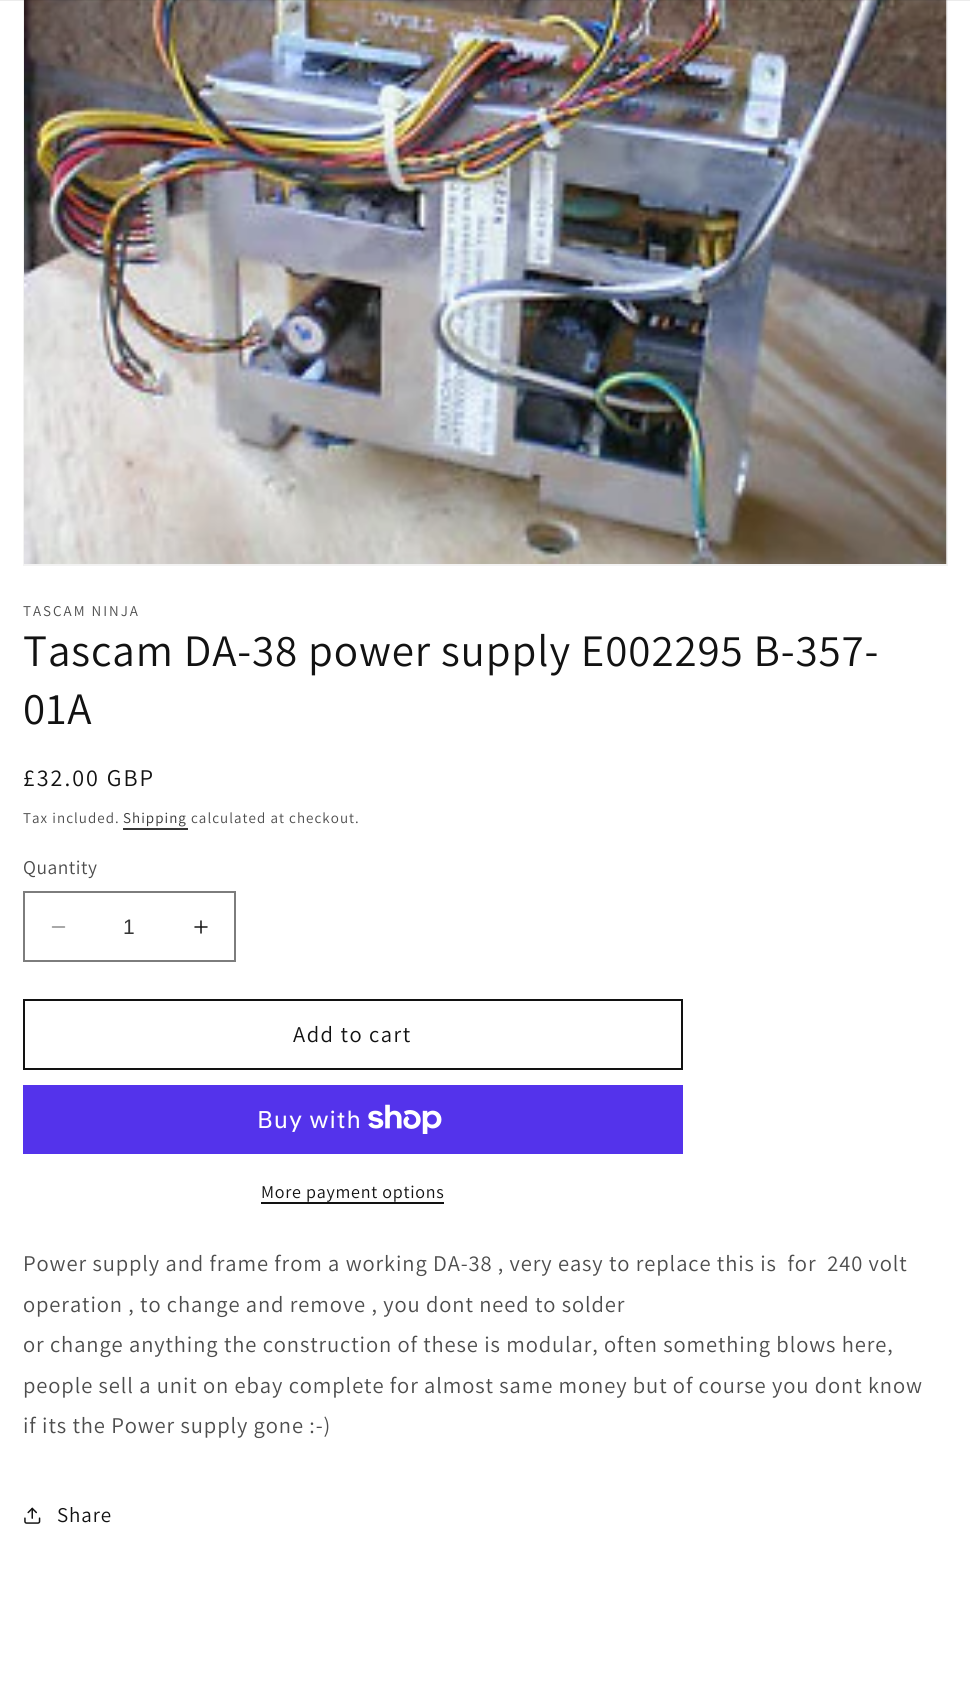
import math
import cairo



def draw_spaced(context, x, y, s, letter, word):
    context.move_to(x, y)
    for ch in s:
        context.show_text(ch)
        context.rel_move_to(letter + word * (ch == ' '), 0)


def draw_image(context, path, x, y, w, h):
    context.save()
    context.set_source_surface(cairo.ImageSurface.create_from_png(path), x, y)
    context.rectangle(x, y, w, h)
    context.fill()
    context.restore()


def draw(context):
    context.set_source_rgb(1, 1, 1)
    context.paint()
    context.rectangle(24, -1, 923, 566)
    context.set_source_rgb(243 / 255, 243 / 255, 243 / 255)
    context.stroke()
    draw_image(context, "images/1.png", 24, 0, 923, 564)
    context.set_source_rgba(18 / 255, 18 / 255, 18 / 255, 0.08)
    context.rectangle(0, 0, 970, 1)
    context.fill()
    context.set_source_rgb(54 / 255, 54 / 255, 54 / 255)
    context.rectangle(123, 828, 65, 2)
    context.fill()
    draw_image(context, "images/2.png", 51, 926, 15, 2)
    draw_image(context, "images/3.png", 194, 920, 14, 14)
    context.rectangle(24, 892, 211, 69)
    context.set_source_rgb(125 / 255, 125 / 255, 125 / 255)
    context.stroke()
    context.rectangle(24, 1000, 658, 69)
    context.set_source_rgb(18 / 255, 18 / 255, 18 / 255)
    context.stroke()
    context.set_source_rgb(84 / 255, 51 / 255, 235 / 255)
    context.rectangle(23, 1085, 660, 69)
    context.fill()
    draw_image(context, "images/4.png", 368, 1104, 74, 30)
    context.set_source_rgb(18 / 255, 18 / 255, 18 / 255)
    context.rectangle(261, 1202, 183, 2)
    context.fill()
    draw_image(context, "images/5.png", 24, 1507, 17, 17)
    context.select_font_face("Assistant")
    context.set_font_size(15)
    context.set_source_rgb(77 / 255, 77 / 255, 77 / 255)
    draw_spaced(context, 23, 616, "TASCAM NINJA", 2, 0)
    context.set_font_size(45)
    context.set_source_rgb(18 / 255, 18 / 255, 18 / 255)
    draw_spaced(context, 23, 666, "Tascam DA-38 power supply E002295 B-357-", 0.9, 0)
    draw_spaced(context, 23, 724, "01A", 0.9, 0)
    context.set_font_size(24)
    draw_spaced(context, 23, 786, "£32.00 GBP", 2, 0)
    context.set_font_size(15)
    context.set_source_rgb(77 / 255, 77 / 255, 77 / 255)
    draw_spaced(context, 23, 823, "Tax included.", 1.05, 0)
    context.set_source_rgb(54 / 255, 54 / 255, 54 / 255)
    draw_spaced(context, 123, 823, "Shipping", 1.05, 0)
    context.set_source_rgb(77 / 255, 77 / 255, 77 / 255)
    draw_spaced(context, 191, 823, "calculated at checkout.", 1.05, 0)
    context.set_font_size(19.5)
    draw_spaced(context, 23, 874, "Quantity", 0.5, 0)
    context.select_font_face("Liberation Sans")
    context.set_font_size(21)
    context.set_source_rgb(54 / 255, 54 / 255, 54 / 255)
    context.move_to(123, 934)
    context.show_text("1")
    context.select_font_face("Assistant")
    context.set_font_size(22.5)
    context.set_source_rgb(18 / 255, 18 / 255, 18 / 255)
    draw_spaced(context, 293, 1042, "Add to cart", 1.5, 0)
    context.select_font_face("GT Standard")
    context.set_font_size(24)
    context.set_source_rgb(1, 1, 1)
    draw_spaced(context, 257, 1128, "Buy with", 0.9, 0)
    context.select_font_face("Assistant")
    context.set_font_size(18)
    context.set_source_rgb(18 / 255, 18 / 255, 18 / 255)
    draw_spaced(context, 261, 1198, "More payment options", 0.75, 0)
    context.set_font_size(22.5)
    context.set_source_rgb(77 / 255, 77 / 255, 77 / 255)
    draw_spaced(context, 23, 1271, "Power supply and frame from a working DA-38 , very easy to replace this is  for  240 volt", 0.9, 0)
    draw_spaced(context, 23, 1312, "operation , to change and remove , you dont need to solder", 0.9, 0)
    draw_spaced(context, 23, 1352, "or change anything the construction of these is modular, often something blows here,", 0.9, 0)
    draw_spaced(context, 23, 1393, "people sell a unit on ebay complete for almost same money but of course you dont know", 0.9, 0)
    draw_spaced(context, 23, 1433, "if its the Power supply gone :-)", 0.9, 0)
    context.set_font_size(21)
    context.set_source_rgb(18 / 255, 18 / 255, 18 / 255)
    draw_spaced(context, 57, 1522, "Share", 0.9, 0)


surface = cairo.ImageSurface(cairo.Format.RGB24, 970, 1696)
context = cairo.Context(surface)
options = cairo.FontOptions()
options.set_hint_metrics(cairo.HintMetrics.OFF)
options.set_hint_style(cairo.HintStyle.NONE)
context.set_font_options(options)
context.set_miter_limit(4)
draw(context)
surface.write_to_png("out.png")
